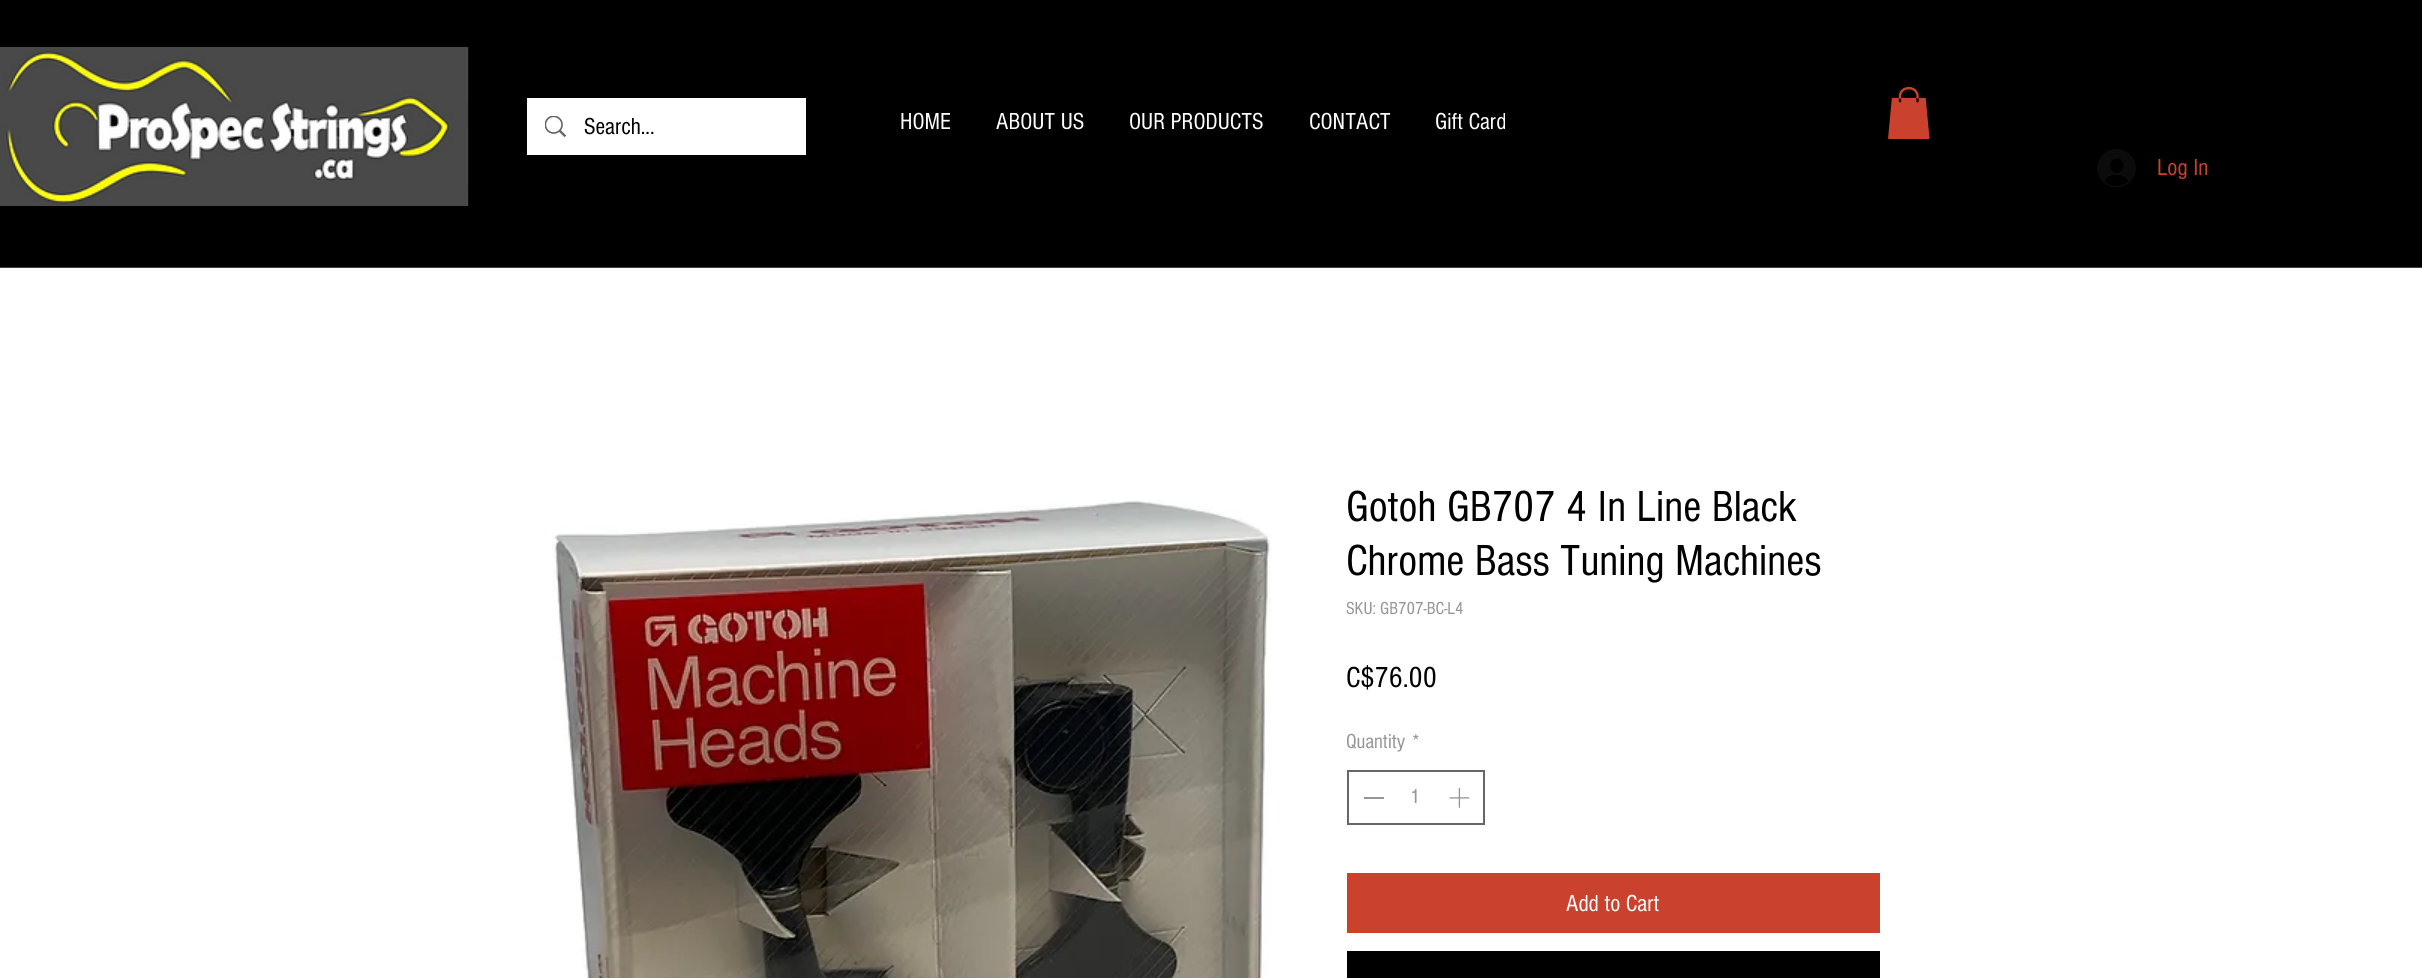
import math
import cairo



def draw_image(context, path, x, y, w, h):
    context.save()
    context.set_source_surface(cairo.ImageSurface.create_from_png(path), x, y)
    context.rectangle(x, y, w, h)
    context.fill()
    context.restore()


def draw(context):
    context.set_source_rgb(1, 1, 1)
    context.paint()
    context.set_source_rgb(0, 0, 0)
    context.rectangle(0, 0, 2422, 11)
    context.fill()
    context.set_source_rgb(60 / 255, 69 / 255, 71 / 255)
    context.rectangle(0, 267, 2422, 1)
    context.fill()
    context.set_source_rgb(0, 0, 0)
    context.rectangle(0, 11, 2422, 256)
    context.fill()
    draw_image(context, "images/1.png", 0, 47, 469, 159)
    context.set_source_rgb(1, 1, 1)
    context.rectangle(527, 98, 279, 57)
    context.fill()
    draw_image(context, "images/2.png", 545, 116, 21, 21)
    draw_image(context, "images/3.png", 1888, 87, 42, 52)
    draw_image(context, "images/4.png", 2097, 149, 39, 38)
    draw_image(context, "images/5.png", 552, 500, 720, 478)
    context.rectangle(1348, 771, 136, 53)
    context.set_source_rgb(102 / 255, 102 / 255, 102 / 255)
    context.stroke()
    context.set_source_rgb(149 / 255, 149 / 255, 150 / 255)
    context.rectangle(1364, 797, 20, 2)
    context.fill()
    draw_image(context, "images/6.png", 1449, 788, 21, 20)
    context.set_source_rgb(202 / 255, 66 / 255, 46 / 255)
    context.rectangle(1347, 873, 533, 60)
    context.fill()
    context.set_source_rgb(0, 0, 0)
    context.rectangle(1347, 951, 533, 27)
    context.fill()
    context.select_font_face("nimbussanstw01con")
    context.set_font_size(24)
    context.move_to(584, 134)
    context.show_text("Search...")
    context.set_source_rgb(1, 1, 1)
    context.move_to(900, 129)
    context.show_text("HOME")
    context.move_to(996, 129)
    context.show_text("ABOUT US")
    context.move_to(1129, 129)
    context.show_text("OUR PRODUCTS")
    context.move_to(1309, 129)
    context.show_text("CONTACT")
    context.move_to(1435, 129)
    context.show_text("Gift Card")
    context.set_source_rgb(202 / 255, 66 / 255, 46 / 255)
    context.move_to(2157, 175)
    context.show_text("Log In")
    context.set_font_size(45)
    context.set_source_rgb(0, 0, 0)
    context.move_to(1346, 521)
    context.show_text("Gotoh GB707 4 In Line Black")
    context.move_to(1346, 575)
    context.show_text("Chrome Bass Tuning Machines")
    context.set_font_size(18)
    context.set_source_rgb(149 / 255, 149 / 255, 150 / 255)
    context.move_to(1346, 614)
    context.show_text("SKU: GB707-BC-L4")
    context.set_font_size(30)
    context.set_source_rgb(0, 0, 0)
    context.move_to(1346, 687)
    context.show_text("C$76.00")
    context.set_font_size(21)
    context.set_source_rgb(149 / 255, 149 / 255, 150 / 255)
    context.move_to(1346, 748)
    context.show_text("Quantity")
    context.move_to(1412, 748)
    context.show_text("*")
    context.move_to(1410, 803)
    context.show_text("1")
    context.set_font_size(24)
    context.set_source_rgb(1, 1, 1)
    context.move_to(1566, 911)
    context.show_text("Add to Cart")


surface = cairo.ImageSurface(cairo.Format.RGB24, 2422, 978)
context = cairo.Context(surface)
options = cairo.FontOptions()
options.set_hint_metrics(cairo.HintMetrics.OFF)
options.set_hint_style(cairo.HintStyle.NONE)
context.set_font_options(options)
context.set_miter_limit(4)
draw(context)
surface.write_to_png("out.png")
